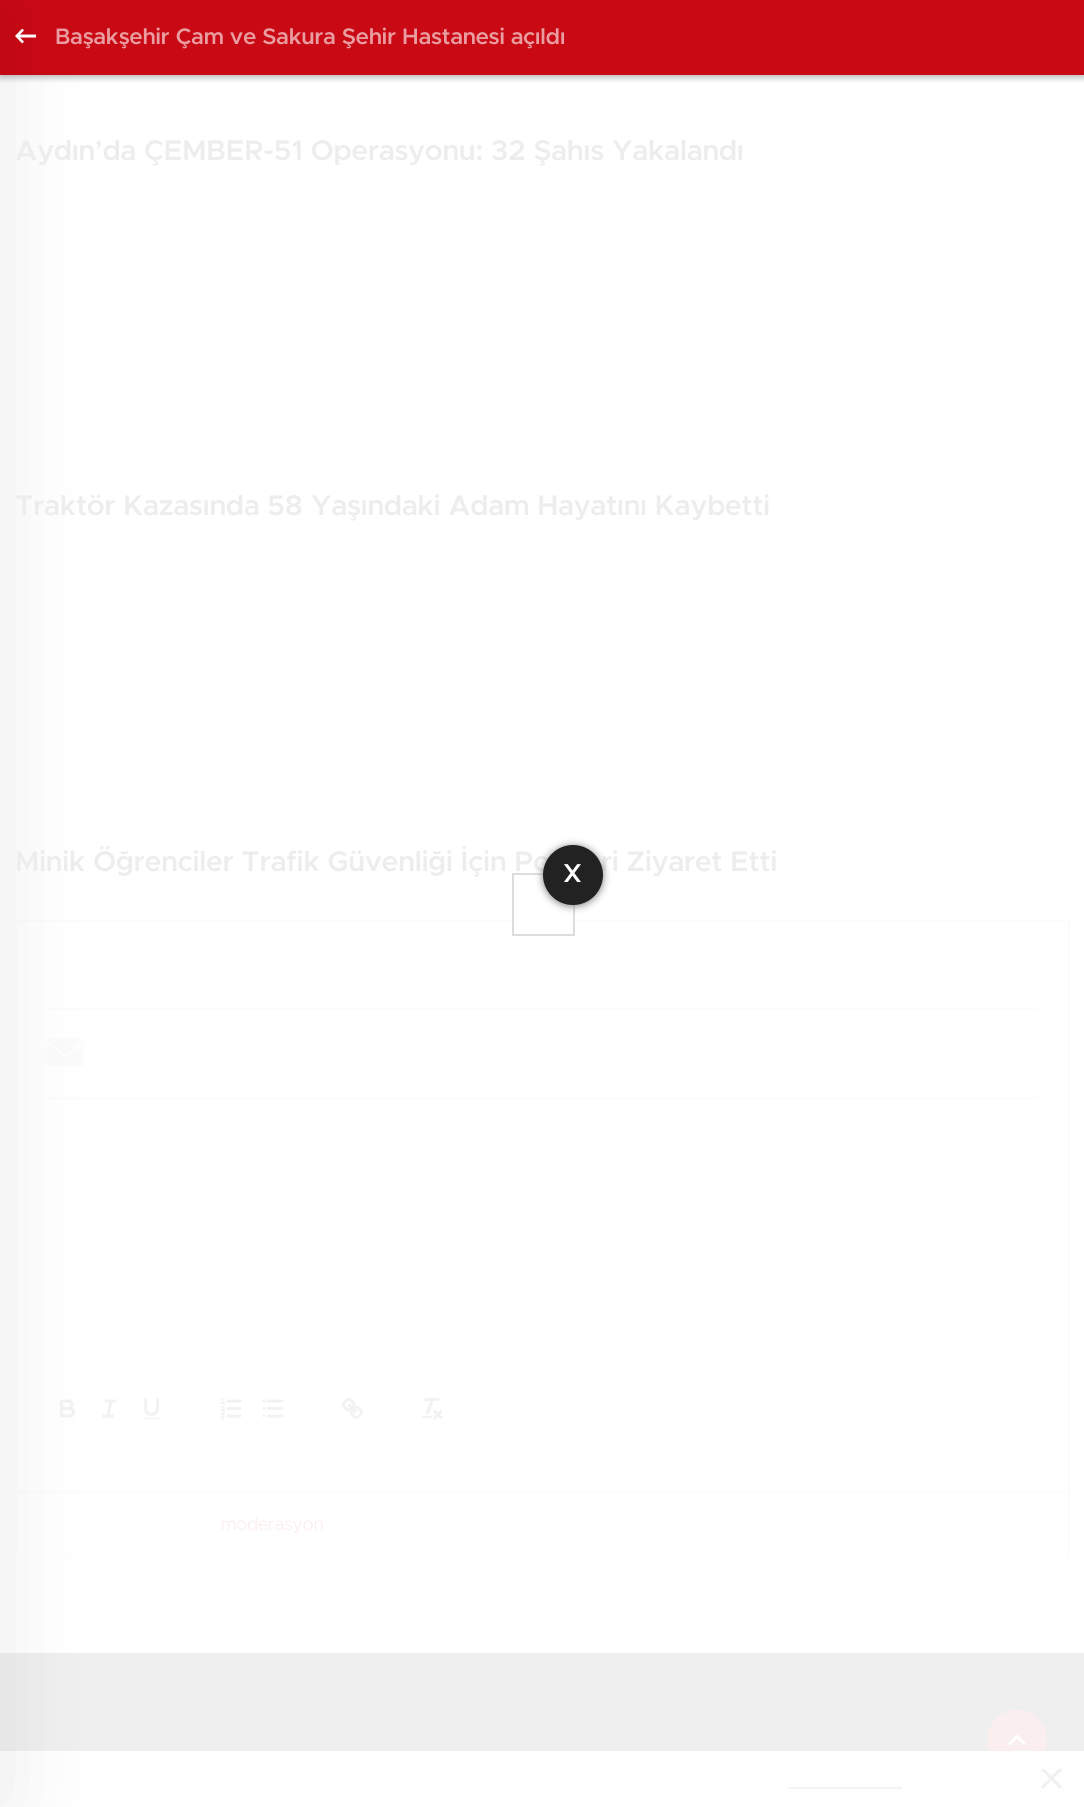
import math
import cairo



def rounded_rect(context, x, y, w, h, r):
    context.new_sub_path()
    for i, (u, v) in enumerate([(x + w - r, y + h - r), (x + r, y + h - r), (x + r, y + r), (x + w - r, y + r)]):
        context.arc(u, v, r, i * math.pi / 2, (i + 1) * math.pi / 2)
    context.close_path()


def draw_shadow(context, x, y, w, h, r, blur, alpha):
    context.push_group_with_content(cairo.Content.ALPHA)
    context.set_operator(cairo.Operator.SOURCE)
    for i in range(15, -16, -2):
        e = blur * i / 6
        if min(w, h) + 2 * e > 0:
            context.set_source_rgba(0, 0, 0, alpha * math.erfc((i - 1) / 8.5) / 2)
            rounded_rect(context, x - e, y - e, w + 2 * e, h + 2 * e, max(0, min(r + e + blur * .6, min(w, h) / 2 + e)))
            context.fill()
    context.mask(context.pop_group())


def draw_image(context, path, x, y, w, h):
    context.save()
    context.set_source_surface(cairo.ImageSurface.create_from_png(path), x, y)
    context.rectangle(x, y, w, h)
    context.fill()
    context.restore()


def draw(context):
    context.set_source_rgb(1, 1, 1)
    context.paint()
    context.set_source_rgb(17 / 255, 21 / 255, 25 / 255)
    draw_shadow(context, 0, 3, 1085, 75, 0, 3, 0.28)
    context.set_source_rgb(201 / 255, 9 / 255, 20 / 255)
    context.rectangle(0, 0, 1084, 75)
    context.fill()
    draw_image(context, "images/1.png", 15, 29, 21, 15)
    context.rectangle(16, 921, 1053, 635)
    context.set_source_rgb(252 / 255, 252 / 255, 252 / 255)
    context.stroke()
    context.rectangle(47, 1008, 991, 2)
    context.fill()
    context.rectangle(47, 1097, 991, 2)
    context.fill()
    draw_image(context, "images/2.png", 47, 1038, 37, 29)
    draw_image(context, "images/3.png", 60, 1399, 15, 19)
    context.new_path()
    context.move_to(106.5, 1401)
    context.line_to(115.5, 1401)
    context.move_to(103.5, 1416)
    context.line_to(112.5, 1416)
    context.move_to(108, 1416)
    context.line_to(111, 1401)
    context.set_source_rgb(242 / 255, 242 / 255, 242 / 255)
    context.set_line_width(3)
    context.set_line_cap(cairo.LineCap.ROUND)
    context.set_line_join(cairo.LineJoin.ROUND)
    context.stroke()
    context.set_source_rgb(1, 1, 1)
    context.rectangle(17, 1555, 1051, 1)
    context.fill()
    context.set_source_rgb(252 / 255, 252 / 255, 252 / 255)
    context.rectangle(17, 1491, 1051, 2)
    context.fill()
    context.set_source_rgb(239 / 255, 239 / 255, 239 / 255)
    context.rectangle(0, 1653, 1084, 154)
    context.fill()
    context.set_source_rgb(251 / 255, 238 / 255, 239 / 255)
    context.arc(1017, 1740, 30, 0, 2 * math.pi)
    context.fill()
    context.set_source_rgba(1, 1, 1, 0.94)
    context.rectangle(0, 1753, 1084, 54)
    context.fill()
    context.set_source_rgb(254 / 255, 254 / 255, 254 / 255)
    context.rectangle(0, 1751, 1084, 2)
    context.fill()
    context.set_source_rgb(0, 0, 0)
    draw_shadow(context, -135, 8, 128, 1792, 0, 45, 0.1)
    draw_image(context, "images/4.png", 143, 1398, 18, 21)
    draw_image(context, "images/5.png", 220, 1398, 22, 21)
    draw_image(context, "images/6.png", 262, 1399, 22, 19)
    draw_image(context, "images/7.png", 342, 1398, 21, 21)
    draw_image(context, "images/8.png", 422, 1398, 21, 21)
    context.set_source_rgb(1, 1, 1)
    context.rectangle(514, 920, 59, 2)
    context.fill()
    context.new_path()
    context.move_to(1017, 1734.5)
    context.line_to(1008, 1743.5)
    context.line_to(1010, 1745.5)
    context.line_to(1017, 1738.5)
    context.line_to(1024, 1745.5)
    context.line_to(1026, 1743.5)
    context.close_path()
    context.fill()
    context.set_source_rgb(244 / 255, 244 / 255, 244 / 255)
    context.rectangle(788, 1787, 114, 2)
    context.fill()
    draw_image(context, "images/9.png", 1041, 1769, 21, 20)
    context.select_font_face("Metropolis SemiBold")
    context.set_font_size(22.5)
    context.set_source_rgb(233 / 255, 157 / 255, 161 / 255)
    context.move_to(55, 44)
    context.show_text("Başakşehir Çam ve Sakura Şehir Hastanesi açıldı")
    context.set_font_size(28.5)
    context.set_source_rgb(237 / 255, 237 / 255, 237 / 255)
    context.move_to(15, 160)
    context.show_text("Aydın’da ÇEMBER-51 Operasyonu: 32 Şahıs Yakalandı")
    context.move_to(15, 515)
    context.show_text("Traktör Kazasında 58 Yaşındaki Adam Hayatını Kaybetti")
    context.move_to(15, 871)
    context.show_text("Minik Öğrenciler Trafik Güvenliği İçin Po")
    context.move_to(601, 871)
    context.show_text("ri Ziyaret Etti")
    context.select_font_face("Metropolis")
    context.set_font_size(18)
    context.set_source_rgb(251 / 255, 238 / 255, 239 / 255)
    context.move_to(221, 1530)
    context.show_text("moderasyon")
    context.rectangle(513, 874, 61, 61)
    context.set_source_rgb(221 / 255, 221 / 255, 221 / 255)
    context.set_line_width(2)
    context.set_line_cap(cairo.LineCap.BUTT)
    context.set_line_join(cairo.LineJoin.MITER)
    context.stroke()
    context.set_source_rgb(128 / 255, 128 / 255, 128 / 255)
    draw_shadow(context, 543, 846, 60, 60, 30, 4, 1)
    context.set_source_rgb(34 / 255, 34 / 255, 34 / 255)
    context.arc(573, 875, 30, 0, 2 * math.pi)
    context.fill()
    context.select_font_face("Metropolis SemiBold")
    context.set_font_size(26)
    context.set_source_rgb(1, 1, 1)
    context.move_to(563, 882)
    context.show_text("X")


surface = cairo.ImageSurface(cairo.Format.RGB24, 1084, 1807)
context = cairo.Context(surface)
options = cairo.FontOptions()
options.set_hint_metrics(cairo.HintMetrics.OFF)
options.set_hint_style(cairo.HintStyle.NONE)
context.set_font_options(options)
context.set_miter_limit(4)
draw(context)
surface.write_to_png("out.png")
